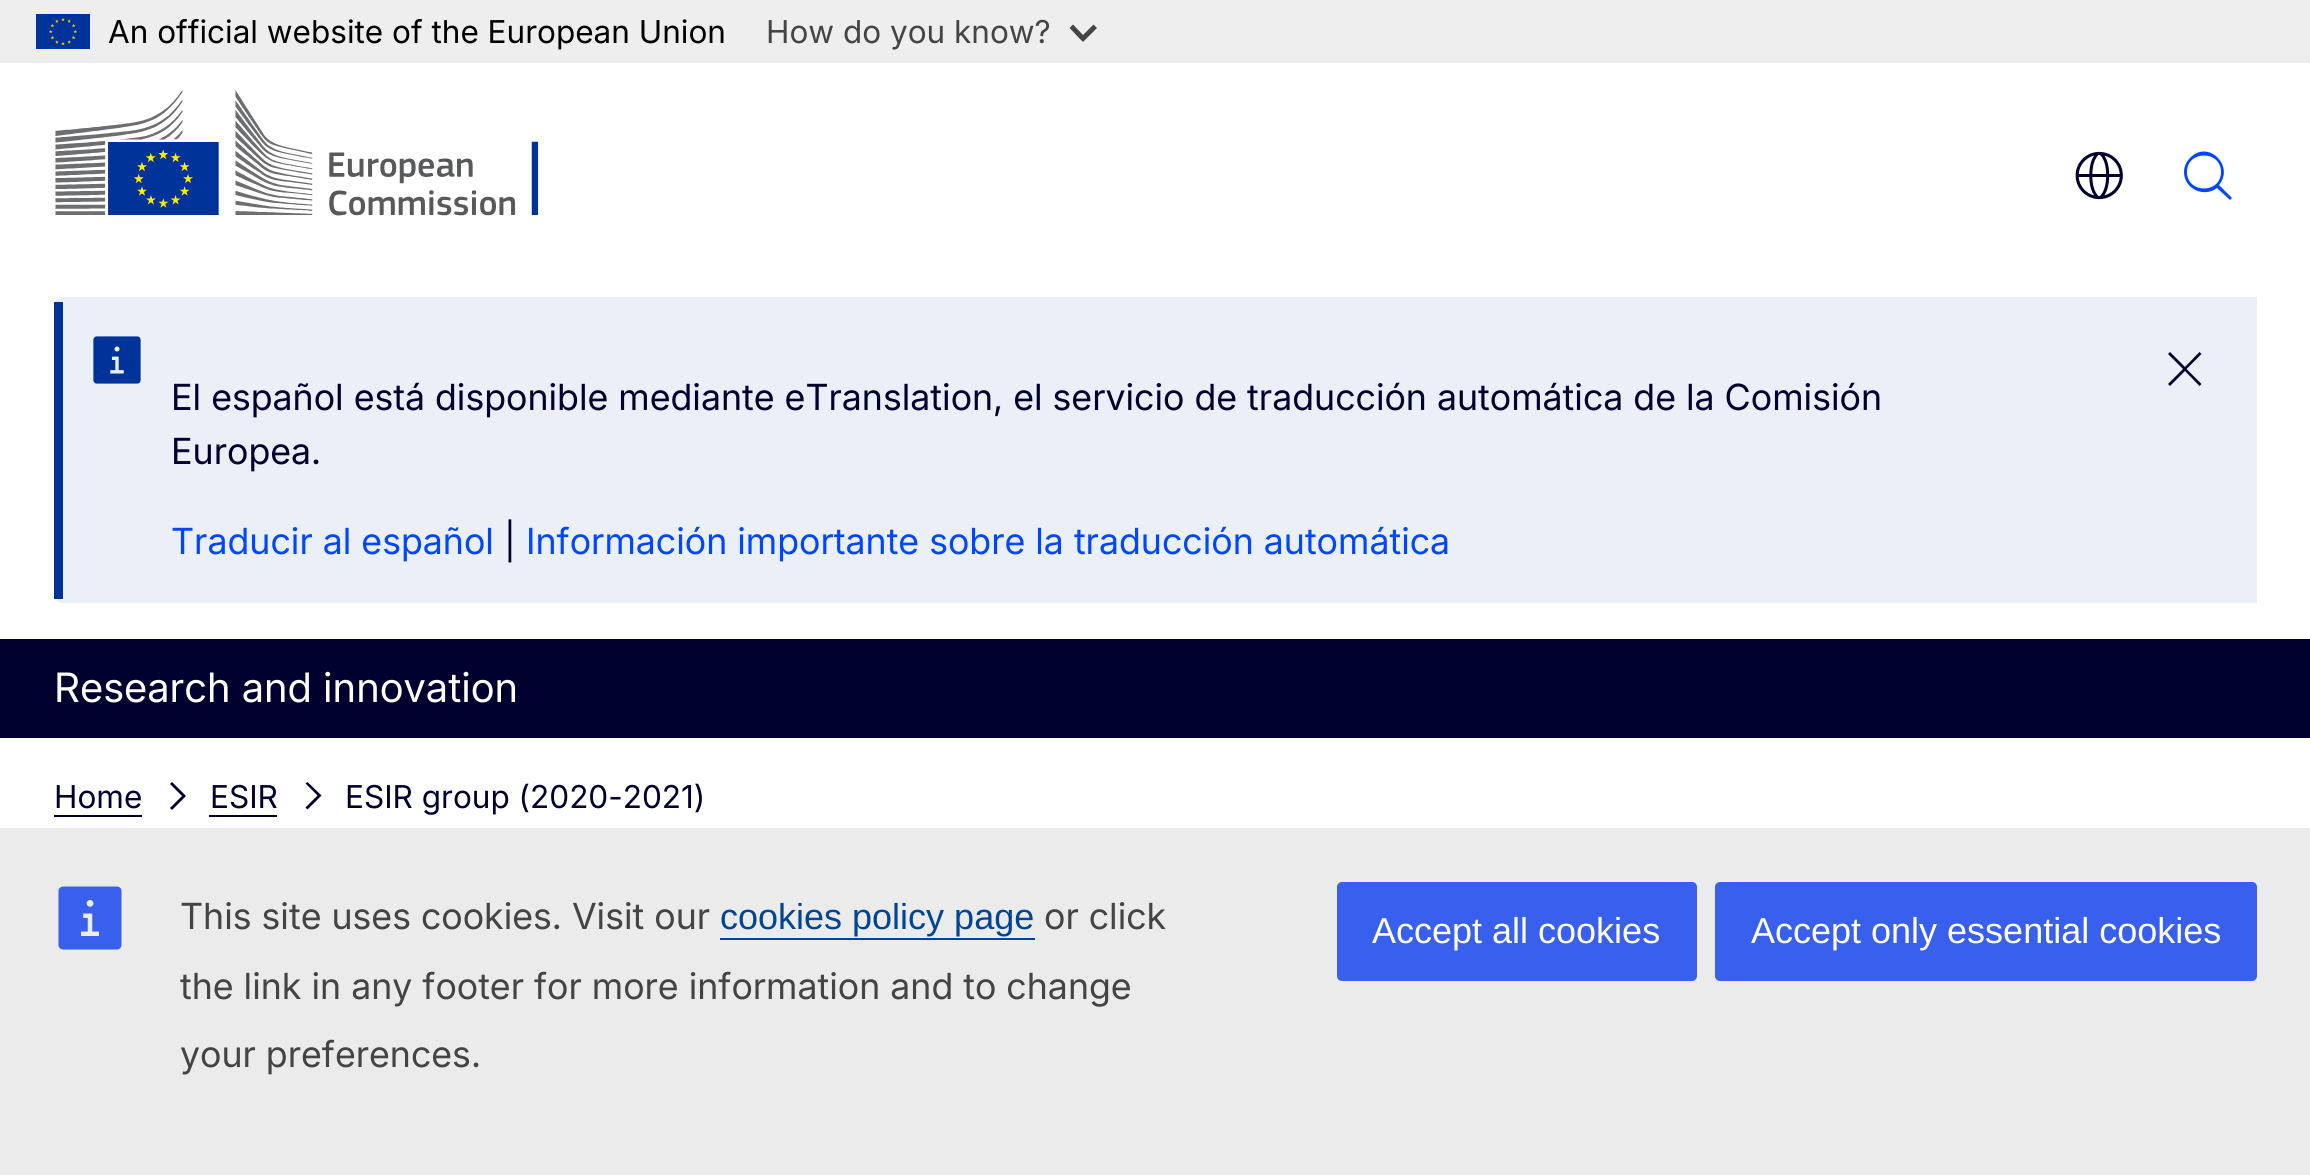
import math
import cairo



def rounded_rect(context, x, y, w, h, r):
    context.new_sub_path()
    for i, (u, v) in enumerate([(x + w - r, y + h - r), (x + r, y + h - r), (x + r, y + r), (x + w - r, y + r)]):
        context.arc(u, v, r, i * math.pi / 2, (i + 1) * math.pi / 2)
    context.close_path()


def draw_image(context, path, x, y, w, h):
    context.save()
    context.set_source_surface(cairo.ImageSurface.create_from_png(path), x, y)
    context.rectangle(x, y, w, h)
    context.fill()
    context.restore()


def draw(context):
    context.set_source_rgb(1, 1, 1)
    context.paint()
    context.set_source_rgb(238 / 255, 238 / 255, 238 / 255)
    context.rectangle(0, 0, 2310, 63)
    context.fill()
    draw_image(context, "images/1.png", 36, 14, 54, 35)
    context.new_path()
    context.move_to(1071.5, 28)
    context.line_to(1073, 26.5)
    context.line_to(1083, 37)
    context.line_to(1093.5, 26.5)
    context.line_to(1095, 28)
    context.line_to(1083, 40)
    context.close_path()
    context.set_source_rgb(68 / 255, 68 / 255, 68 / 255)
    context.set_line_width(2.8)
    context.stroke()
    draw_image(context, "images/2.png", 55, 90, 484, 126)
    draw_image(context, "images/3.png", 2075, 151, 48, 49)
    context.set_source_rgb(0, 70 / 255, 1)
    context.set_fill_rule(cairo.FillRule.EVEN_ODD)
    context.new_path()
    context.move_to(2184, 172)
    context.curve_to(2184, 167, 2186, 162, 2190, 158)
    context.curve_to(2208, 139, 2235, 166, 2219, 185)
    context.line_to(2232, 198)
    context.line_to(2230, 200)
    context.line_to(2217, 188)
    context.curve_to(2204, 198, 2184, 189, 2184, 172)
    context.move_to(2221, 172)
    context.curve_to(2221, 150, 2187, 150, 2187, 172)
    context.curve_to(2187, 194, 2221, 194, 2221, 172)
    context.fill()
    context.set_source_rgb(235 / 255, 239 / 255, 247 / 255)
    context.new_path()
    context.move_to(63, 297)
    context.line_to(2257, 297)
    context.line_to(2257, 603)
    context.line_to(63, 603)
    context.curve_to(58, 603, 54, 599, 54, 594)
    context.line_to(54, 306)
    context.curve_to(54, 301, 58, 297, 63, 297)
    context.close_path()
    context.fill()
    context.set_source_rgb(0, 51 / 255, 153 / 255)
    context.rectangle(54, 302, 9, 297)
    context.fill()
    draw_image(context, "images/4.png", 93, 336, 48, 48)
    context.set_source_rgb(0, 0, 46 / 255)
    context.new_path()
    context.move_to(2201.5, 354)
    context.line_to(2199.5, 352)
    context.line_to(2185, 367)
    context.line_to(2170, 352)
    context.line_to(2168, 354)
    context.line_to(2183, 369)
    context.line_to(2168, 384)
    context.line_to(2170, 386)
    context.line_to(2185, 371)
    context.line_to(2199.5, 386)
    context.line_to(2201.5, 384)
    context.line_to(2186.5, 369)
    context.close_path()
    context.fill()
    context.rectangle(0, 639, 2310, 99)
    context.fill()
    context.rectangle(54, 815, 88, 2)
    context.fill()
    context.set_fill_rule(cairo.FillRule.WINDING)
    context.new_path()
    context.move_to(172, 810)
    context.line_to(170, 808)
    context.line_to(182, 796)
    context.line_to(170, 784)
    context.line_to(172, 782)
    context.line_to(186, 796)
    context.close_path()
    context.fill()
    context.rectangle(209, 815, 68, 2)
    context.fill()
    context.new_path()
    context.move_to(307.5, 809.5)
    context.line_to(305.5, 807.5)
    context.line_to(317.5, 795.5)
    context.line_to(305.5, 783.5)
    context.line_to(307.5, 782)
    context.line_to(321.5, 795.5)
    context.close_path()
    context.fill()
    context.set_source_rgb(235 / 255, 235 / 255, 235 / 255)
    context.rectangle(0, 828, 2310, 347)
    context.fill()
    draw_image(context, "images/5.png", 58, 886, 64, 64)
    context.set_source_rgb(0, 68 / 255, 148 / 255)
    context.rectangle(720, 938, 315, 2)
    context.fill()
    context.set_source_rgb(56 / 255, 96 / 255, 237 / 255)
    rounded_rect(context, 1337, 882, 360, 99, 5)
    context.fill()
    rounded_rect(context, 1715, 882, 542, 99, 5)
    context.fill()
    context.select_font_face("Inter")
    context.set_font_size(31.5)
    context.set_source_rgb(0, 0, 0)
    context.move_to(108, 43)
    context.show_text("An official website of the European Union")
    context.set_source_rgb(68 / 255, 68 / 255, 68 / 255)
    context.move_to(766, 43)
    context.show_text("How do you know?")
    context.select_font_face("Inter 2")
    context.set_font_size(36)
    context.set_source_rgb(0, 0, 46 / 255)
    context.move_to(171, 410)
    context.show_text("El español está disponible mediante eTranslation, el servicio de traducción automática de la Comisión")
    context.move_to(171, 464)
    context.show_text("Europea.")
    context.set_source_rgb(0, 70 / 255, 1)
    context.move_to(171, 554)
    context.show_text("Traducir al español")
    context.set_source_rgb(0, 0, 46 / 255)
    context.move_to(504, 554)
    context.show_text("|")
    context.set_source_rgb(0, 70 / 255, 1)
    context.move_to(526, 554)
    context.show_text("Información importante sobre la traducción automática")
    context.select_font_face("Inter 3")
    context.set_font_size(40.5)
    context.set_source_rgb(1, 1, 1)
    context.move_to(54, 702)
    context.show_text("Research and innovation")
    context.select_font_face("Inter")
    context.set_font_size(31.5)
    context.set_source_rgb(0, 0, 46 / 255)
    context.move_to(54, 808)
    context.show_text("Home")
    context.move_to(210, 808)
    context.show_text("ESIR")
    context.move_to(345, 808)
    context.show_text("ESIR group (2020-2021)")
    context.select_font_face("Inter 2")
    context.set_font_size(36)
    context.set_source_rgb(68 / 255, 68 / 255, 68 / 255)
    context.move_to(180, 929)
    context.show_text("This site uses cookies. Visit our")
    context.select_font_face("Liberation Sans")
    context.set_source_rgb(0, 68 / 255, 148 / 255)
    context.move_to(720, 929)
    context.show_text("cookies policy page")
    context.select_font_face("Inter 2")
    context.set_source_rgb(68 / 255, 68 / 255, 68 / 255)
    context.move_to(1044, 929)
    context.show_text("or click")
    context.move_to(180, 999)
    context.show_text("the link in any footer for more information and to change")
    context.move_to(180, 1067)
    context.show_text("your preferences.")
    context.select_font_face("Liberation Sans")
    context.set_source_rgb(1, 1, 1)
    context.move_to(1372, 943)
    context.show_text("Accept all cookies")
    context.move_to(1751, 943)
    context.show_text("Accept only essential cookies")


surface = cairo.ImageSurface(cairo.Format.RGB24, 2310, 1175)
context = cairo.Context(surface)
options = cairo.FontOptions()
options.set_hint_metrics(cairo.HintMetrics.OFF)
options.set_hint_style(cairo.HintStyle.NONE)
context.set_font_options(options)
context.set_miter_limit(4)
draw(context)
surface.write_to_png("out.png")
